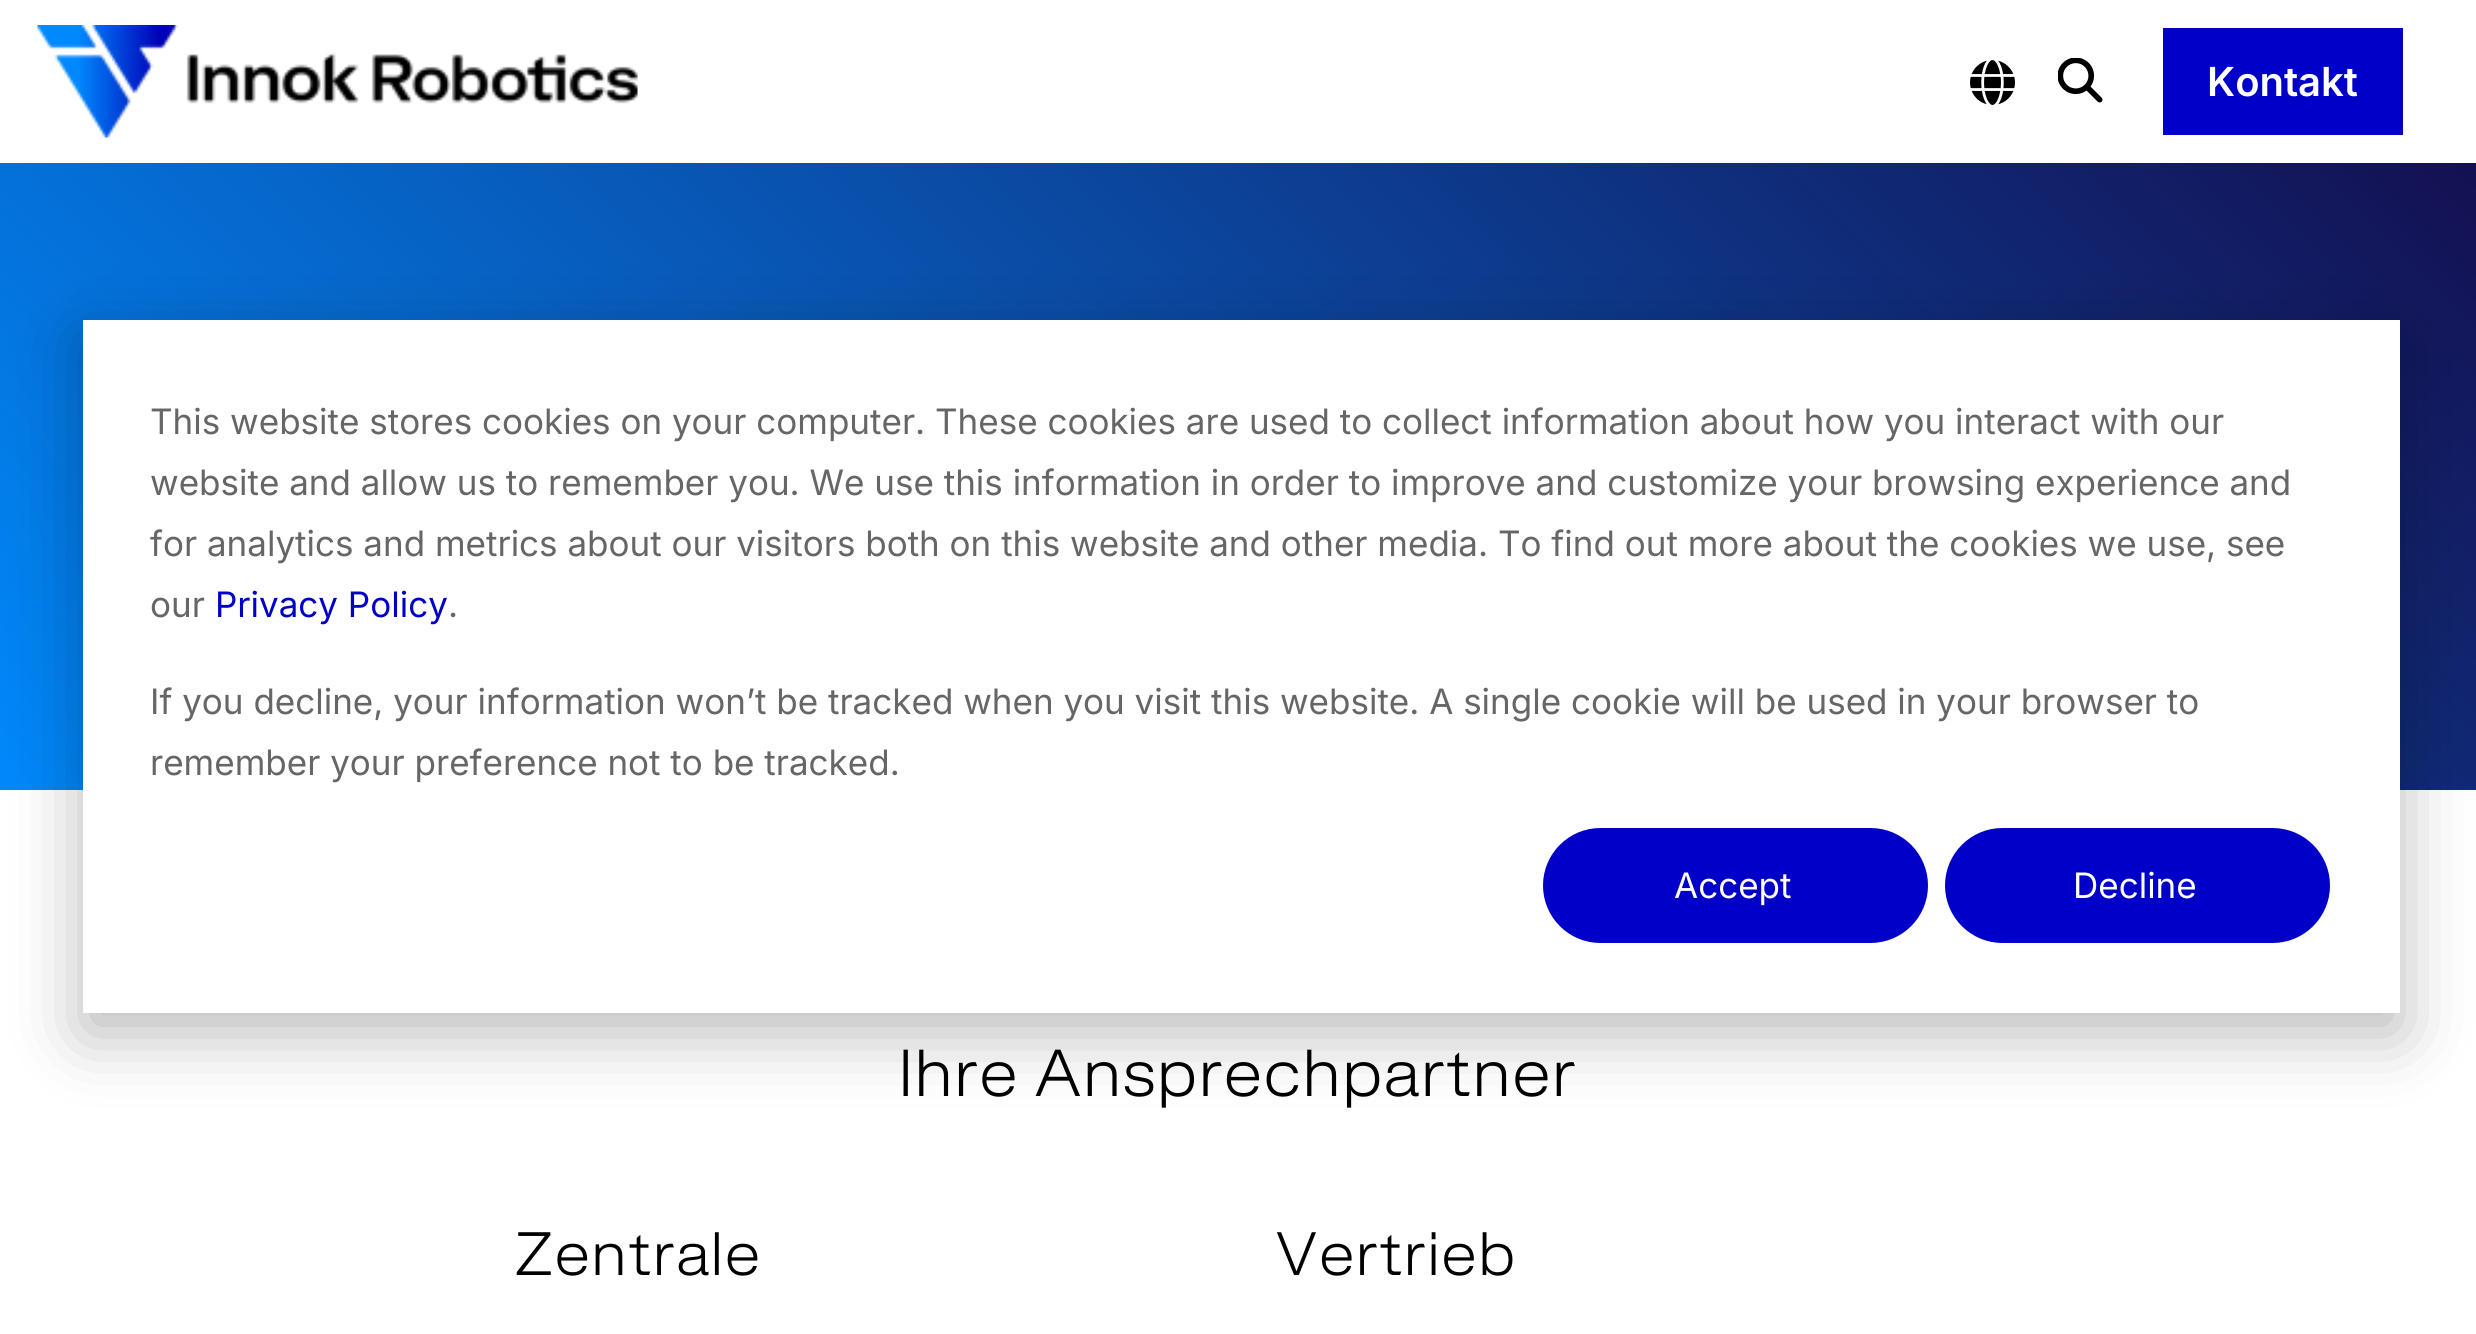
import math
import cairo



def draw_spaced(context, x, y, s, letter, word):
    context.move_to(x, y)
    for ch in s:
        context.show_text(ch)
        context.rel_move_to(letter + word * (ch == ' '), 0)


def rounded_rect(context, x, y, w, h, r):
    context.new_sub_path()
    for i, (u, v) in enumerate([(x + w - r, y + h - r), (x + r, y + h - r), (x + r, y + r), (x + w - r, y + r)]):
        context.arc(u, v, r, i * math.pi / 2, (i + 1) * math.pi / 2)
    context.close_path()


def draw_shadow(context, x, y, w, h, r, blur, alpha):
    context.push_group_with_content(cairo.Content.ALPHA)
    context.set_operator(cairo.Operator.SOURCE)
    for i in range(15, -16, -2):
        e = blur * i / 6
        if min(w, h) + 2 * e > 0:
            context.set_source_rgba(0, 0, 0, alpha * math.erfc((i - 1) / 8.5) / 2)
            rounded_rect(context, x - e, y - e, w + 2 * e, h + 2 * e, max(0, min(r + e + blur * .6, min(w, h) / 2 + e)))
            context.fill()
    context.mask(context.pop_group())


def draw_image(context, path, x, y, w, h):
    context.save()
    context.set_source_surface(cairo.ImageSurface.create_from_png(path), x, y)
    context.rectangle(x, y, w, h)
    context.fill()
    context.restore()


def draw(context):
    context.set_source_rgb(1, 1, 1)
    context.paint()
    draw_image(context, "images/1.png", 37, 25, 601, 113)
    draw_image(context, "images/2.png", 1970, 60, 45, 45)
    draw_image(context, "images/3.png", 2058, 58, 45, 45)
    context.set_source_rgb(0, 0, 200 / 255)
    context.rectangle(2163, 28, 240, 107)
    context.fill()
    gradient = cairo.LinearGradient(463, 1253, 2015, -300)
    gradient.add_color_stop_rgba(0, 0, 137 / 255, 251 / 255, 1)
    gradient.add_color_stop_rgba(1, 20 / 255, 16 / 255, 82 / 255, 1)
    context.set_source(gradient)
    context.rectangle(0, 163, 2476, 627)
    context.fill()
    context.set_source_rgb(0, 0, 0)
    draw_shadow(context, 83, 340, 2317, 693, 0, 35, 0.28)
    context.set_source_rgb(1, 1, 1)
    context.rectangle(83, 320, 2317, 693)
    context.fill()
    context.set_source_rgb(0, 0, 200 / 255)
    rounded_rect(context, 1544.5, 829.5, 382, 112, 56)
    context.fill_preserve()
    context.set_line_width(3)
    context.stroke()
    rounded_rect(context, 1946.5, 829.5, 382, 112, 56)
    context.fill_preserve()
    context.stroke()
    context.select_font_face("Inter SemiBold")
    context.set_font_size(40)
    context.set_source_rgb(1, 1, 1)
    context.move_to(2207, 96)
    context.show_text("Kontakt")
    context.select_font_face("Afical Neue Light")
    context.set_font_size(65)
    context.set_source_rgb(0, 0, 0)
    draw_spaced(context, 899, 1096, "Ihre Ansprechpartner", 2.5, 0)
    context.set_font_size(60)
    draw_spaced(context, 515, 1275, "Zentrale", 2.5, 0)
    draw_spaced(context, 1276, 1275, "Vertrieb", 2.5, 0)
    context.select_font_face("Inter")
    context.set_font_size(35)
    context.set_source_rgb(102 / 255, 102 / 255, 102 / 255)
    context.move_to(150, 434)
    context.show_text("This website stores cookies on your computer. These cookies are used to collect information about how you interact with our")
    context.move_to(150, 495)
    context.show_text("website and allow us to remember you. We use this information in order to improve and customize your browsing experience and")
    context.move_to(150, 556)
    context.show_text("for analytics and metrics about our visitors both on this website and other media. To find out more about the cookies we use, see")
    context.move_to(150, 617)
    context.show_text("our")
    context.set_source_rgb(0, 0, 200 / 255)
    context.move_to(215, 617)
    context.show_text("Privacy Policy")
    context.set_source_rgb(102 / 255, 102 / 255, 102 / 255)
    context.move_to(448, 617)
    context.show_text(".")
    context.move_to(150, 714)
    context.show_text("If you decline, your information won’t be tracked when you visit this website. A single cookie will be used in your browser to")
    context.move_to(150, 775)
    context.show_text("remember your preference not to be tracked.")
    context.set_source_rgb(1, 1, 1)
    context.move_to(1674, 898)
    context.show_text("Accept")
    context.move_to(2073, 898)
    context.show_text("Decline")


surface = cairo.ImageSurface(cairo.Format.RGB24, 2476, 1334)
context = cairo.Context(surface)
options = cairo.FontOptions()
options.set_hint_metrics(cairo.HintMetrics.OFF)
options.set_hint_style(cairo.HintStyle.NONE)
context.set_font_options(options)
context.set_miter_limit(4)
draw(context)
surface.write_to_png("out.png")
